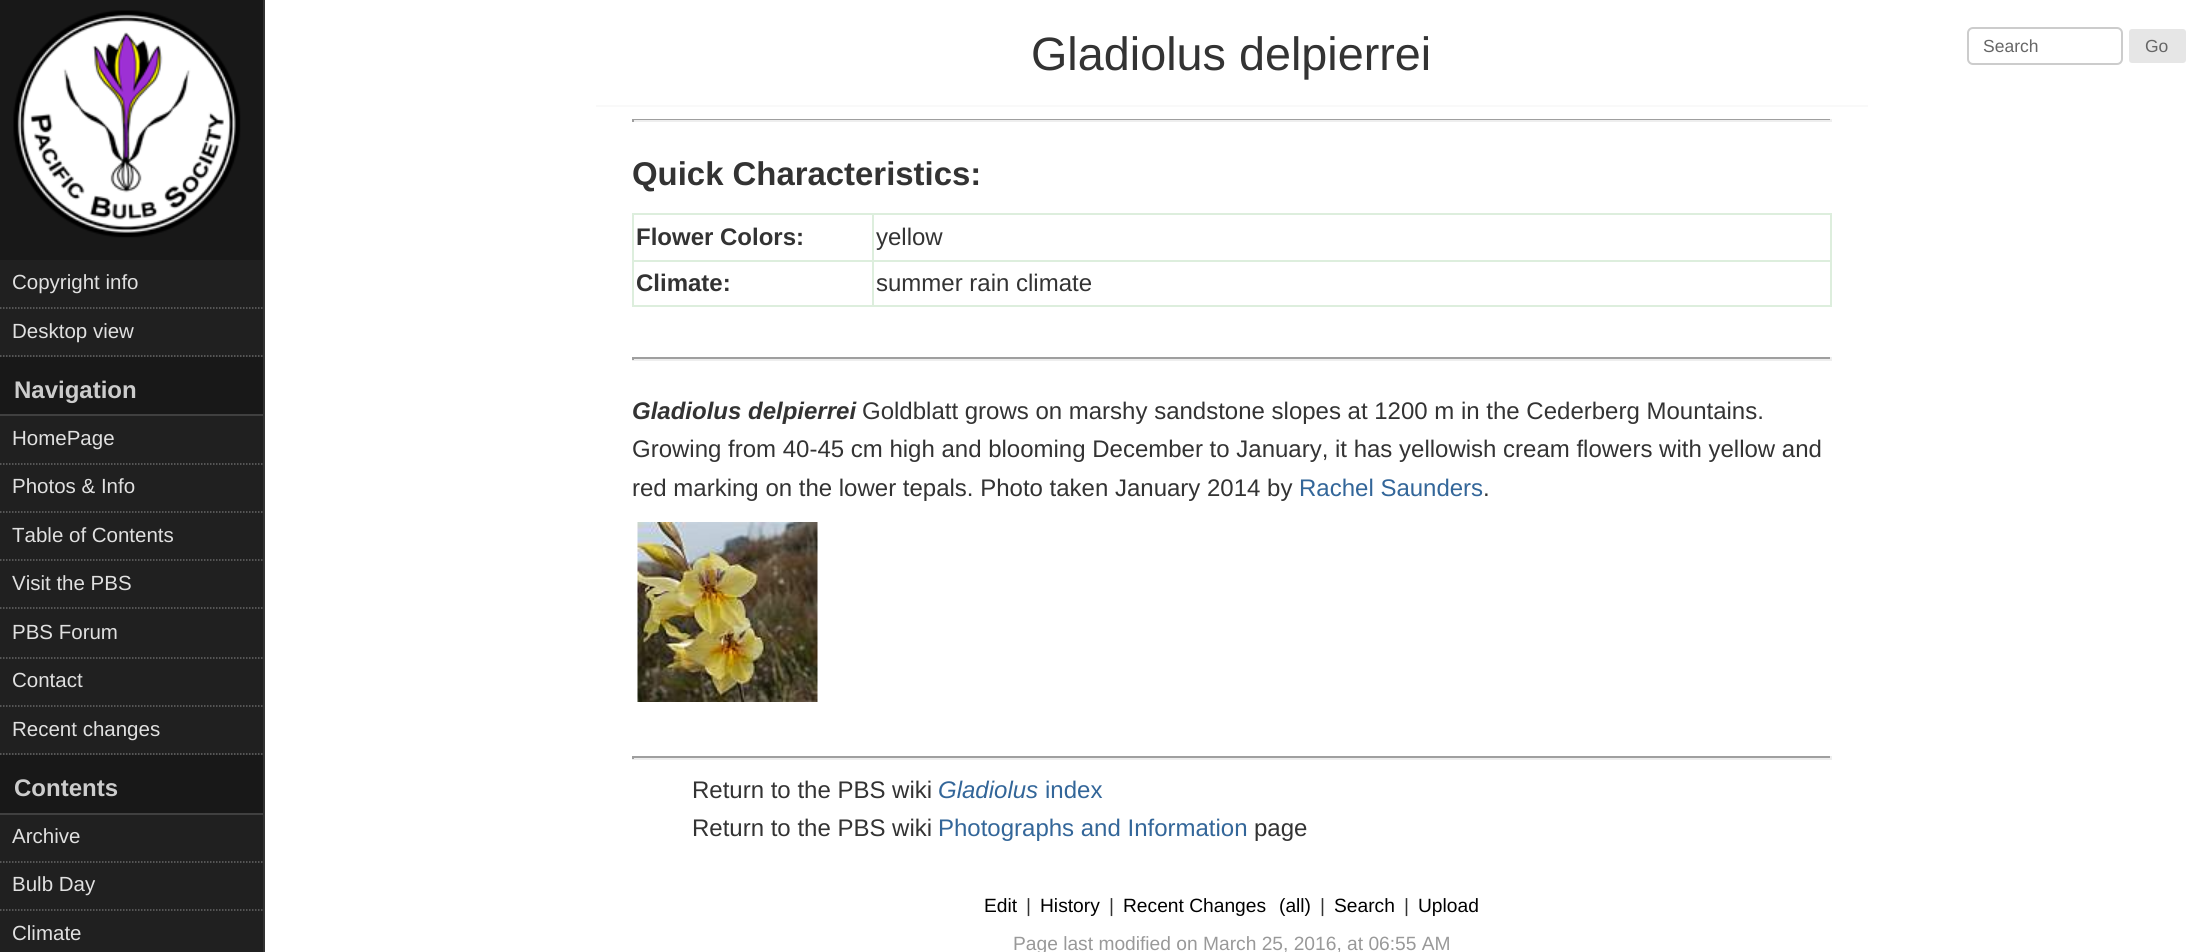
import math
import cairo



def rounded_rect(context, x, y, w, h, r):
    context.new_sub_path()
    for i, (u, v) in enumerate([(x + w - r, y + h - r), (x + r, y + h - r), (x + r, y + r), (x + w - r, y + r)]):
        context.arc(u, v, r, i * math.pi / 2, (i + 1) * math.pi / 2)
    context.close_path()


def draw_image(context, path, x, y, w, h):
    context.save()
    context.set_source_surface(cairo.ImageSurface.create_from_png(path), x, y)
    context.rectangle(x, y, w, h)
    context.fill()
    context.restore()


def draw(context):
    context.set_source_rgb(1, 1, 1)
    context.paint()
    context.set_source_rgb(249 / 255, 249 / 255, 249 / 255)
    context.rectangle(596, 105, 1272, 2)
    context.fill()
    rounded_rect(context, 1968, 28, 154, 36, 5)
    context.set_source_rgb(204 / 255, 204 / 255, 204 / 255)
    context.stroke()
    context.set_source_rgb(230 / 255, 230 / 255, 230 / 255)
    rounded_rect(context, 2129, 29, 57, 34, 3)
    context.fill()
    context.set_source_rgb(24 / 255, 24 / 255, 24 / 255)
    context.rectangle(0, 0, 263, 813)
    context.fill()
    context.set_source_rgb(51 / 255, 51 / 255, 51 / 255)
    context.rectangle(263, 0, 2, 952)
    context.fill()
    draw_image(context, "images/1.png", 13, 10, 228, 228)
    context.set_source_rgb(32 / 255, 32 / 255, 32 / 255)
    context.rectangle(0, 260, 263, 97)
    context.fill()
    context.new_path()
    context.move_to(0, 308)
    context.line_to(262.5, 308)
    context.set_source_rgb(102 / 255, 102 / 255, 102 / 255)
    context.set_line_width(1.5)
    context.set_dash([1.5, 1.5])
    context.stroke()
    context.new_path()
    context.move_to(0, 356)
    context.line_to(262.5, 356)
    context.stroke()
    context.set_source_rgb(64 / 255, 64 / 255, 64 / 255)
    context.rectangle(0, 414, 263, 2)
    context.fill()
    context.set_source_rgb(32 / 255, 32 / 255, 32 / 255)
    context.rectangle(0, 416, 263, 339)
    context.fill()
    context.new_path()
    context.move_to(0, 464)
    context.line_to(262.5, 464)
    context.set_source_rgb(102 / 255, 102 / 255, 102 / 255)
    context.stroke()
    context.new_path()
    context.move_to(0, 512)
    context.line_to(262.5, 512)
    context.stroke()
    context.new_path()
    context.move_to(0, 560)
    context.line_to(262.5, 560)
    context.stroke()
    context.new_path()
    context.move_to(0, 608)
    context.line_to(262.5, 608)
    context.stroke()
    context.new_path()
    context.move_to(0, 658)
    context.line_to(262.5, 658)
    context.stroke()
    context.new_path()
    context.move_to(0, 706)
    context.line_to(262.5, 706)
    context.stroke()
    context.new_path()
    context.move_to(0, 754)
    context.line_to(262.5, 754)
    context.stroke()
    context.set_source_rgb(64 / 255, 64 / 255, 64 / 255)
    context.rectangle(0, 813, 263, 2)
    context.fill()
    context.set_source_rgb(32 / 255, 32 / 255, 32 / 255)
    context.rectangle(0, 815, 263, 137)
    context.fill()
    context.new_path()
    context.move_to(0, 862)
    context.line_to(262.5, 862)
    context.set_source_rgb(102 / 255, 102 / 255, 102 / 255)
    context.stroke()
    context.new_path()
    context.move_to(0, 910)
    context.line_to(262.5, 910)
    context.stroke()
    context.set_source_rgb(159 / 255, 159 / 255, 159 / 255)
    context.rectangle(632, 119, 1200, 1)
    context.fill()
    context.set_source_rgb(238 / 255, 238 / 255, 238 / 255)
    context.rectangle(1830, 119, 2, 3)
    context.fill()
    context.rectangle(632, 120, 1200, 2)
    context.fill()
    context.set_source_rgb(159 / 255, 159 / 255, 159 / 255)
    context.rectangle(632, 119, 2, 3)
    context.fill()
    context.set_source_rgb(221 / 255, 238 / 255, 221 / 255)
    context.rectangle(872, 213, 960, 2)
    context.fill()
    context.rectangle(872, 260, 960, 2)
    context.fill()
    context.rectangle(1830, 260, 2, 46)
    context.fill()
    context.rectangle(872, 305, 960, 2)
    context.fill()
    context.rectangle(872, 260, 2, 46)
    context.fill()
    context.rectangle(632, 260, 241, 2)
    context.fill()
    context.rectangle(872, 213, 2, 48)
    context.fill()
    context.rectangle(632, 213, 241, 2)
    context.fill()
    context.rectangle(632, 305, 241, 2)
    context.fill()
    context.rectangle(632, 260, 2, 46)
    context.fill()
    context.rectangle(632, 213, 2, 48)
    context.fill()
    context.rectangle(1830, 213, 2, 48)
    context.fill()
    context.set_source_rgb(159 / 255, 159 / 255, 159 / 255)
    context.rectangle(632, 357, 1200, 2)
    context.fill()
    context.set_source_rgb(238 / 255, 238 / 255, 238 / 255)
    context.rectangle(1830, 357, 2, 3)
    context.fill()
    context.rectangle(632, 359, 1200, 2)
    context.fill()
    context.set_source_rgb(159 / 255, 159 / 255, 159 / 255)
    context.rectangle(632, 357, 2, 3)
    context.fill()
    draw_image(context, "images/2.png", 637, 522, 181, 180)
    context.rectangle(632, 756, 1200, 2)
    context.fill()
    context.set_source_rgb(238 / 255, 238 / 255, 238 / 255)
    context.rectangle(1830, 756, 2, 3)
    context.fill()
    context.rectangle(632, 758, 1200, 2)
    context.fill()
    context.set_source_rgb(159 / 255, 159 / 255, 159 / 255)
    context.rectangle(632, 756, 2, 3)
    context.fill()
    context.select_font_face("Liberation Sans")
    context.set_font_size(46.75)
    context.set_source_rgb(51 / 255, 51 / 255, 51 / 255)
    context.move_to(1031, 70)
    context.show_text("Gladiolus delpierrei")
    context.set_font_size(17.5)
    context.set_source_rgb(102 / 255, 102 / 255, 102 / 255)
    context.move_to(1983, 52)
    context.show_text("Search")
    context.move_to(2145, 52)
    context.show_text("Go")
    context.set_font_size(20.5)
    context.set_source_rgb(224 / 255, 224 / 255, 224 / 255)
    context.move_to(12, 289)
    context.show_text("Copyright info")
    context.move_to(12, 338)
    context.show_text("Desktop view")
    context.select_font_face("Liberation Sans", cairo.FontSlant.NORMAL, cairo.FontWeight.BOLD)
    context.set_font_size(24)
    context.set_source_rgb(204 / 255, 204 / 255, 204 / 255)
    context.move_to(14, 398)
    context.show_text("Navigation")
    context.select_font_face("Liberation Sans")
    context.set_font_size(20.5)
    context.set_source_rgb(224 / 255, 224 / 255, 224 / 255)
    context.move_to(12, 445)
    context.show_text("HomePage")
    context.move_to(12, 493)
    context.show_text("Photos & Info")
    context.move_to(12, 542)
    context.show_text("Table of Contents")
    context.move_to(12, 590)
    context.show_text("Visit the PBS")
    context.move_to(12, 639)
    context.show_text("PBS Forum")
    context.move_to(12, 687)
    context.show_text("Contact")
    context.move_to(12, 736)
    context.show_text("Recent changes")
    context.select_font_face("Liberation Sans", cairo.FontSlant.NORMAL, cairo.FontWeight.BOLD)
    context.set_font_size(24)
    context.set_source_rgb(204 / 255, 204 / 255, 204 / 255)
    context.move_to(14, 796)
    context.show_text("Contents")
    context.select_font_face("Liberation Sans")
    context.set_font_size(20.5)
    context.set_source_rgb(224 / 255, 224 / 255, 224 / 255)
    context.move_to(12, 843)
    context.show_text("Archive")
    context.move_to(12, 891)
    context.show_text("Bulb Day")
    context.move_to(12, 940)
    context.show_text("Climate")
    context.select_font_face("Liberation Sans", cairo.FontSlant.NORMAL, cairo.FontWeight.BOLD)
    context.set_font_size(32.9)
    context.set_source_rgb(51 / 255, 51 / 255, 51 / 255)
    context.move_to(632, 185)
    context.show_text("Quick Characteristics:")
    context.set_font_size(24)
    context.move_to(636, 245)
    context.show_text("Flower Colors:")
    context.select_font_face("Liberation Sans")
    context.move_to(876, 245)
    context.show_text("yellow")
    context.select_font_face("Liberation Sans", cairo.FontSlant.NORMAL, cairo.FontWeight.BOLD)
    context.move_to(636, 291)
    context.show_text("Climate:")
    context.select_font_face("Liberation Sans")
    context.move_to(876, 291)
    context.show_text("summer rain climate")
    context.select_font_face("Liberation Sans", cairo.FontSlant.ITALIC, cairo.FontWeight.BOLD)
    context.move_to(632, 419)
    context.show_text("Gladiolus delpierrei")
    context.select_font_face("Liberation Sans")
    context.move_to(862, 419)
    context.show_text("Goldblatt grows on marshy sandstone slopes at 1200 m in the Cederberg Mountains.")
    context.move_to(632, 457)
    context.show_text("Growing from 40-45 cm high and blooming December to January, it has yellowish cream flowers with yellow and")
    context.move_to(632, 496)
    context.show_text("red marking on the lower tepals. Photo taken January 2014 by")
    context.set_source_rgb(51 / 255, 102 / 255, 153 / 255)
    context.move_to(1299, 496)
    context.show_text("Rachel Saunders")
    context.set_source_rgb(51 / 255, 51 / 255, 51 / 255)
    context.move_to(1483, 496)
    context.show_text(".")
    context.move_to(692, 798)
    context.show_text("Return to the PBS wiki")
    context.select_font_face("Liberation Sans", cairo.FontSlant.ITALIC)
    context.set_source_rgb(51 / 255, 102 / 255, 153 / 255)
    context.move_to(938, 798)
    context.show_text("Gladiolus")
    context.select_font_face("Liberation Sans")
    context.move_to(1045, 798)
    context.show_text("index")
    context.set_source_rgb(51 / 255, 51 / 255, 51 / 255)
    context.move_to(692, 836)
    context.show_text("Return to the PBS wiki")
    context.set_source_rgb(51 / 255, 102 / 255, 153 / 255)
    context.move_to(938, 836)
    context.show_text("Photographs and Information")
    context.set_source_rgb(51 / 255, 51 / 255, 51 / 255)
    context.move_to(1254, 836)
    context.show_text("page")
    context.set_font_size(19.2)
    context.set_source_rgb(0, 0, 0)
    context.move_to(984, 912)
    context.show_text("Edit")
    context.set_source_rgb(51 / 255, 51 / 255, 51 / 255)
    context.move_to(1026, 912)
    context.show_text("|")
    context.set_source_rgb(0, 0, 0)
    context.move_to(1040, 912)
    context.show_text("History")
    context.set_source_rgb(51 / 255, 51 / 255, 51 / 255)
    context.move_to(1109, 912)
    context.show_text("|")
    context.set_source_rgb(0, 0, 0)
    context.move_to(1123, 912)
    context.show_text("Recent Changes")
    context.move_to(1279, 912)
    context.show_text("(all)")
    context.set_source_rgb(51 / 255, 51 / 255, 51 / 255)
    context.move_to(1320, 912)
    context.show_text("|")
    context.set_source_rgb(0, 0, 0)
    context.move_to(1334, 912)
    context.show_text("Search")
    context.set_source_rgb(51 / 255, 51 / 255, 51 / 255)
    context.move_to(1404, 912)
    context.show_text("|")
    context.set_source_rgb(0, 0, 0)
    context.move_to(1418, 912)
    context.show_text("Upload")
    context.set_source_rgb(153 / 255, 153 / 255, 153 / 255)
    context.move_to(1013, 950)
    context.show_text("Page last modified on March 25, 2016, at 06:55 AM")


surface = cairo.ImageSurface(cairo.Format.RGB24, 2200, 952)
context = cairo.Context(surface)
options = cairo.FontOptions()
options.set_hint_metrics(cairo.HintMetrics.OFF)
options.set_hint_style(cairo.HintStyle.NONE)
context.set_font_options(options)
context.set_miter_limit(4)
draw(context)
surface.write_to_png("out.png")
